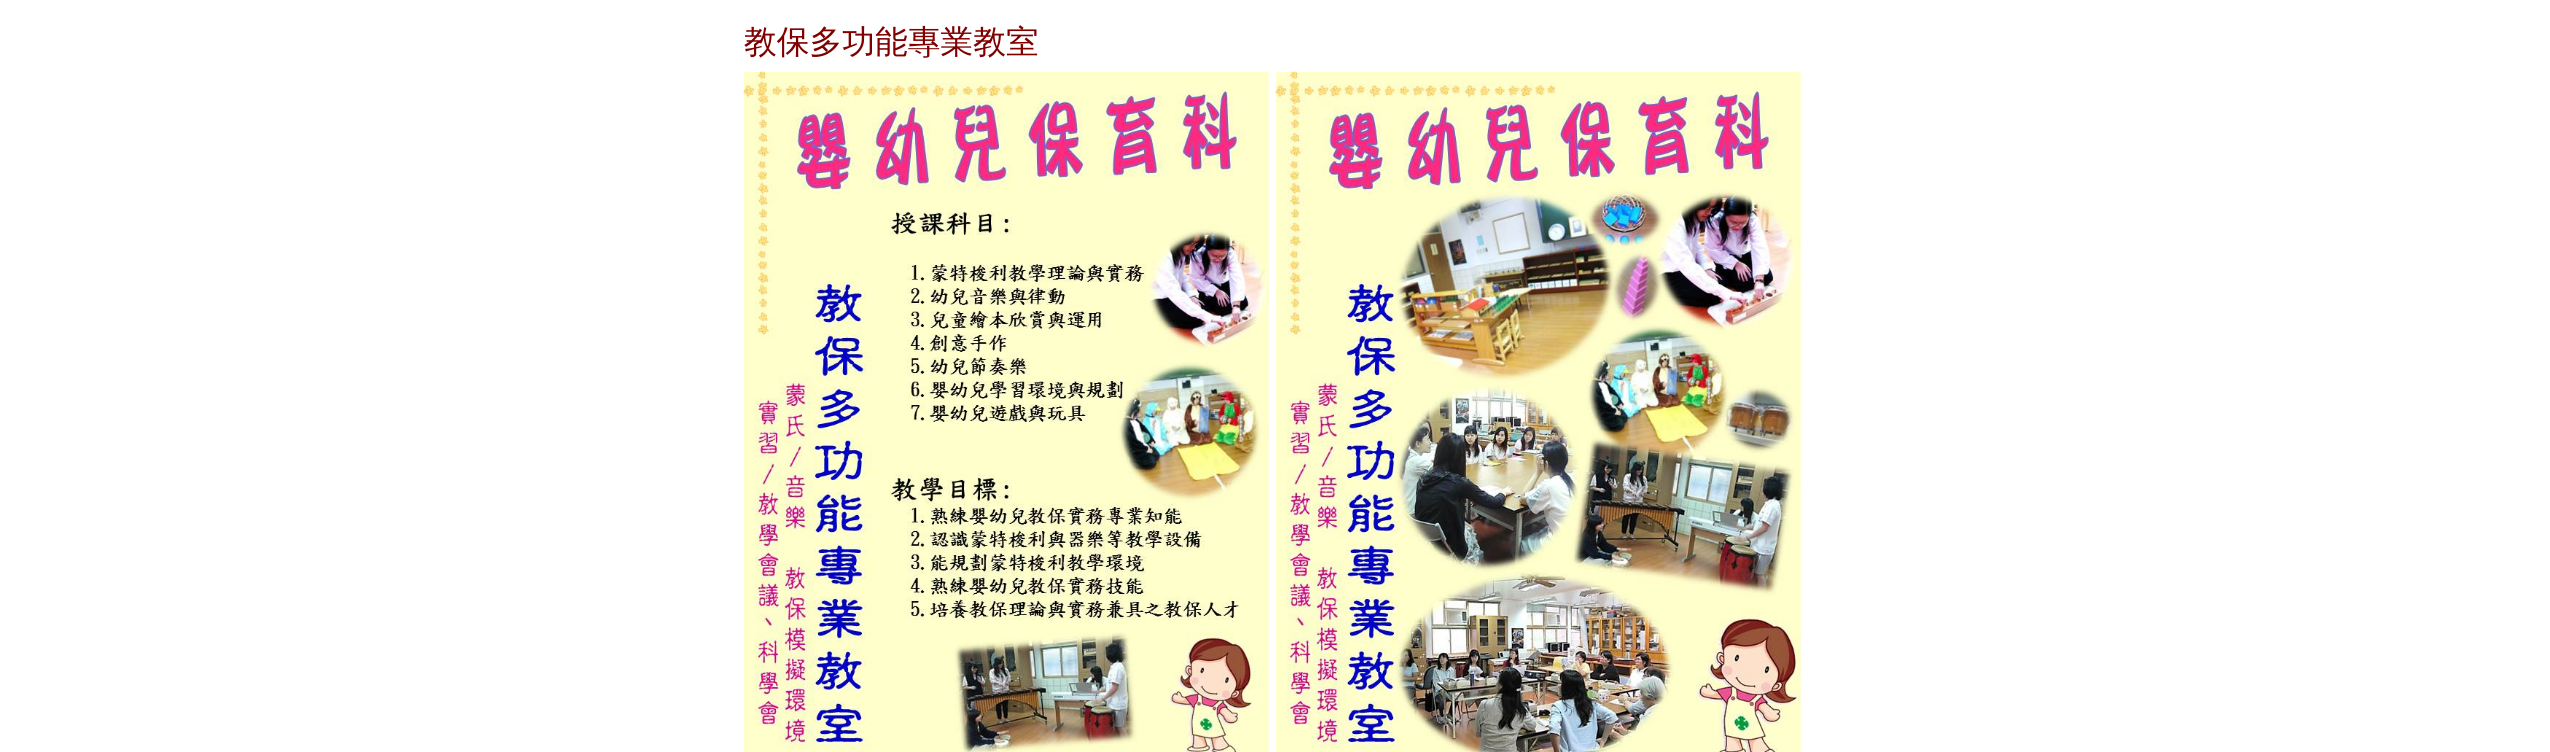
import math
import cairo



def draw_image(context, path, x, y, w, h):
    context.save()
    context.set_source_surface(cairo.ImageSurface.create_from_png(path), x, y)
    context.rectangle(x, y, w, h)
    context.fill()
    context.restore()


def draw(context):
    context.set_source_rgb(1, 1, 1)
    context.paint()
    draw_image(context, "images/1.png", 743, 71, 526, 681)
    draw_image(context, "images/2.png", 1275, 71, 526, 681)
    context.select_font_face("WenQuanYi Zen Hei Medium")
    context.set_font_size(32.75)
    context.set_source_rgb(128 / 255, 0, 0)
    context.move_to(744, 53)
    context.show_text("教保多功能專業教室")


surface = cairo.ImageSurface(cairo.Format.RGB24, 2550, 752)
context = cairo.Context(surface)
options = cairo.FontOptions()
options.set_hint_metrics(cairo.HintMetrics.OFF)
options.set_hint_style(cairo.HintStyle.NONE)
context.set_font_options(options)
context.set_miter_limit(4)
draw(context)
surface.write_to_png("out.png")
